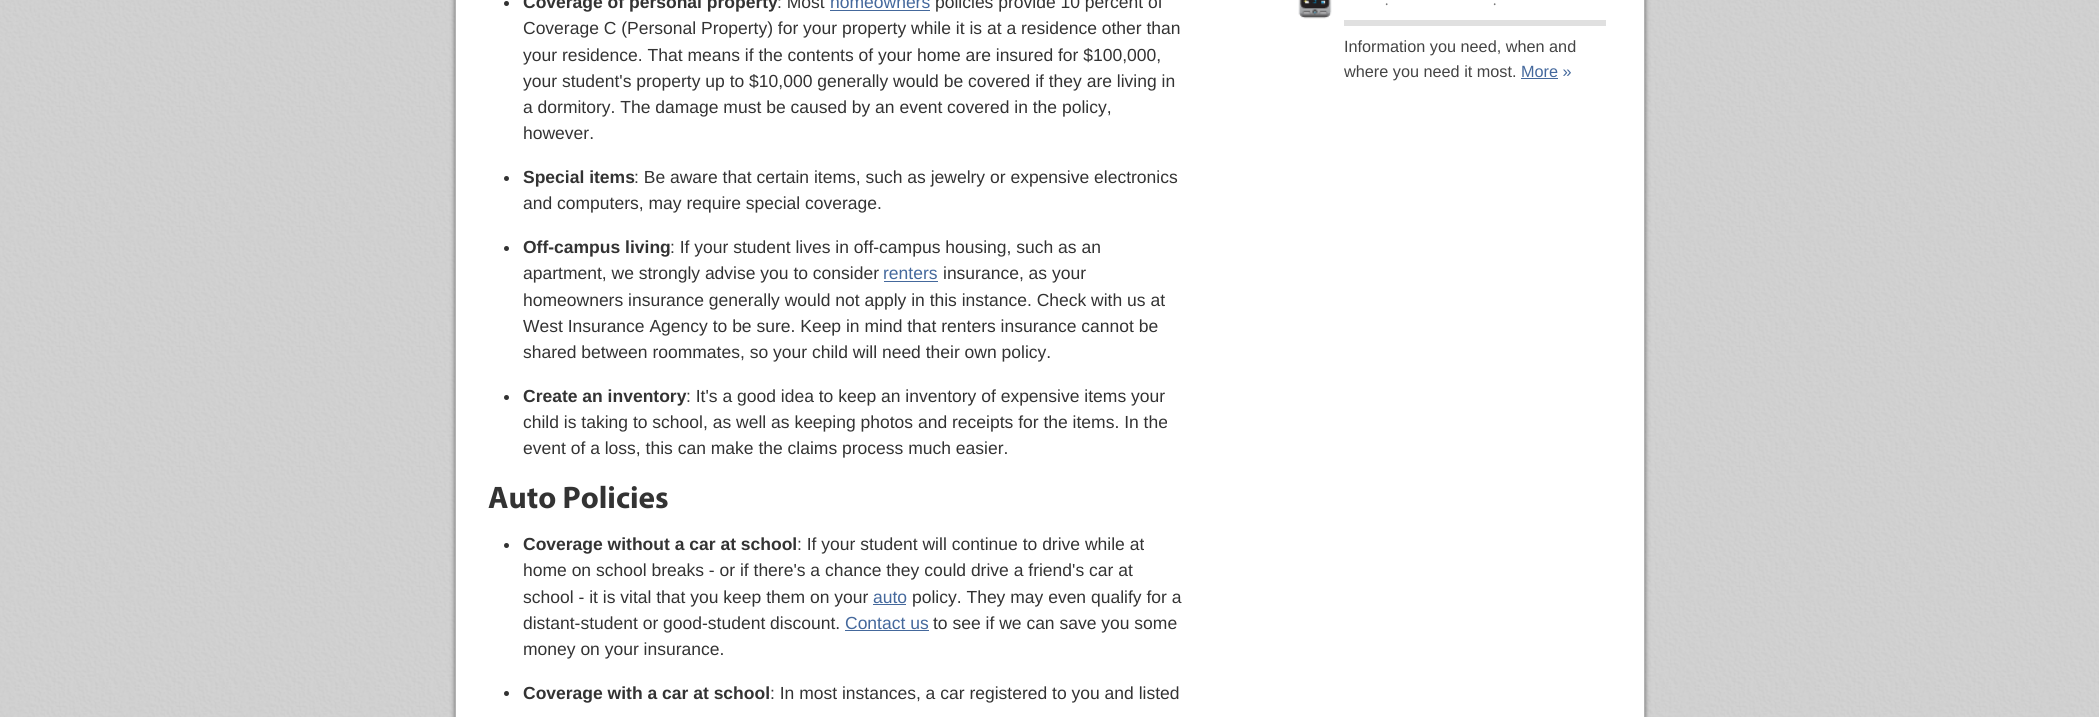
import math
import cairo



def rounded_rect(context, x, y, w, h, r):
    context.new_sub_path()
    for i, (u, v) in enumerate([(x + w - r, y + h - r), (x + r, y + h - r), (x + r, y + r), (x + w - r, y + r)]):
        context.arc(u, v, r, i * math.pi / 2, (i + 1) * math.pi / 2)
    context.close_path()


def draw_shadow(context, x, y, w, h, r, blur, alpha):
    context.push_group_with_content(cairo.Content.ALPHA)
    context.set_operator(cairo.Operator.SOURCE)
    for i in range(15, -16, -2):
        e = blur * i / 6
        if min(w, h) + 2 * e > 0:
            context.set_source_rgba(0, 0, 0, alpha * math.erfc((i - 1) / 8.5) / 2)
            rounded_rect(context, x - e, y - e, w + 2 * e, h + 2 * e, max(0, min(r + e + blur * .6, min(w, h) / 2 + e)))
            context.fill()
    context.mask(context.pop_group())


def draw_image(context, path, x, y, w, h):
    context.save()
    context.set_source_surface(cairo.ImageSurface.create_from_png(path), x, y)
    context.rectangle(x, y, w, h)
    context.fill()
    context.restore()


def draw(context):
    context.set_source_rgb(1, 1, 1)
    context.paint()
    draw_image(context, "images/1.png", 0, 0, 2099, 717)
    context.set_source_rgb(0, 0, 0)
    draw_shadow(context, 455, -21, 1190, 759, 13, 2.5, 0.5)
    context.set_source_rgb(1, 1, 1)
    context.rectangle(455.5, -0.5, 1189, 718)
    context.fill_preserve()
    context.set_source_rgb(177 / 255, 177 / 255, 177 / 255)
    context.set_line_width(1)
    context.stroke()
    context.set_source_rgb(51 / 255, 51 / 255, 51 / 255)
    context.arc(506.5, 3.5, 2.5, 0, 2 * math.pi)
    context.fill()
    context.set_source_rgb(68 / 255, 104 / 255, 156 / 255)
    context.rectangle(830, 10, 100, 1)
    context.fill()
    context.set_source_rgb(51 / 255, 51 / 255, 51 / 255)
    context.arc(506.5, 178.5, 2.5, 0, 2 * math.pi)
    context.fill()
    context.arc(506.5, 248.5, 2.5, 0, 2 * math.pi)
    context.fill()
    context.set_source_rgb(68 / 255, 104 / 255, 156 / 255)
    context.rectangle(884, 281, 54, 1)
    context.fill()
    context.set_source_rgb(51 / 255, 51 / 255, 51 / 255)
    context.arc(506.5, 397.5, 2.5, 0, 2 * math.pi)
    context.fill()
    context.arc(506.5, 545.5, 2.5, 0, 2 * math.pi)
    context.fill()
    context.set_source_rgb(68 / 255, 104 / 255, 156 / 255)
    context.rectangle(873, 604, 33, 1)
    context.fill()
    context.rectangle(845, 630, 84, 1)
    context.fill()
    context.set_source_rgb(51 / 255, 51 / 255, 51 / 255)
    context.arc(506.5, 693.5, 2.5, 0, 2 * math.pi)
    context.fill()
    context.set_source_rgb(224 / 255, 224 / 255, 224 / 255)
    context.rectangle(1344, 20, 262, 6)
    context.fill()
    draw_image(context, "images/2.png", 1298, 0, 34, 19)
    context.set_source_rgb(68 / 255, 104 / 255, 156 / 255)
    context.rectangle(1521, 78, 37, 1)
    context.fill()
    context.select_font_face("Liberation Sans", cairo.FontSlant.NORMAL, cairo.FontWeight.BOLD)
    context.set_font_size(17.5)
    context.set_source_rgb(51 / 255, 51 / 255, 51 / 255)
    context.move_to(523, 8)
    context.show_text("Coverage of personal property")
    context.select_font_face("Liberation Sans")
    context.move_to(777, 8)
    context.show_text(": Most")
    context.set_source_rgb(68 / 255, 104 / 255, 156 / 255)
    context.move_to(830, 8)
    context.show_text("homeowners")
    context.set_source_rgb(51 / 255, 51 / 255, 51 / 255)
    context.move_to(935, 8)
    context.show_text("policies provide 10 percent of")
    context.move_to(523, 34)
    context.show_text("Coverage C (Personal Property) for your property while it is at a residence other than")
    context.move_to(523, 61)
    context.show_text("your residence. That means if the contents of your home are insured for $100,000,")
    context.move_to(523, 87)
    context.show_text("your student's property up to $10,000 generally would be covered if they are living in")
    context.move_to(523, 113)
    context.show_text("a dormitory. The damage must be caused by an event covered in the policy,")
    context.move_to(523, 139)
    context.show_text("however.")
    context.select_font_face("Liberation Sans", cairo.FontSlant.NORMAL, cairo.FontWeight.BOLD)
    context.move_to(523, 183)
    context.show_text("Special items")
    context.select_font_face("Liberation Sans")
    context.move_to(634, 183)
    context.show_text(": Be aware that certain items, such as jewelry or expensive electronics")
    context.move_to(523, 209)
    context.show_text("and computers, may require special coverage.")
    context.select_font_face("Liberation Sans", cairo.FontSlant.NORMAL, cairo.FontWeight.BOLD)
    context.move_to(523, 253)
    context.show_text("Off-campus living")
    context.select_font_face("Liberation Sans")
    context.move_to(670, 253)
    context.show_text(": If your student lives in off-campus housing, such as an")
    context.move_to(523, 279)
    context.show_text("apartment, we strongly advise you to consider")
    context.set_source_rgb(68 / 255, 104 / 255, 156 / 255)
    context.move_to(883, 279)
    context.show_text("renters")
    context.set_source_rgb(51 / 255, 51 / 255, 51 / 255)
    context.move_to(943, 279)
    context.show_text("insurance, as your")
    context.move_to(523, 306)
    context.show_text("homeowners insurance generally would not apply in this instance. Check with us at")
    context.move_to(523, 332)
    context.show_text("West Insurance Agency to be sure. Keep in mind that renters insurance cannot be")
    context.move_to(523, 358)
    context.show_text("shared between roommates, so your child will need their own policy.")
    context.select_font_face("Liberation Sans", cairo.FontSlant.NORMAL, cairo.FontWeight.BOLD)
    context.move_to(523, 402)
    context.show_text("Create an inventory")
    context.select_font_face("Liberation Sans")
    context.move_to(686, 402)
    context.show_text(": It's a good idea to keep an inventory of expensive items your")
    context.move_to(523, 428)
    context.show_text("child is taking to school, as well as keeping photos and receipts for the items. In the")
    context.move_to(523, 454)
    context.show_text("event of a loss, this can make the claims process much easier.")
    context.select_font_face("Myriad", cairo.FontSlant.NORMAL, cairo.FontWeight.BOLD)
    context.set_font_size(31.25)
    context.move_to(488, 508)
    context.show_text("Auto Policies")
    context.select_font_face("Liberation Sans", cairo.FontSlant.NORMAL, cairo.FontWeight.BOLD)
    context.set_font_size(17.5)
    context.move_to(523, 550)
    context.show_text("Coverage without a car at school")
    context.select_font_face("Liberation Sans")
    context.move_to(797, 550)
    context.show_text(": If your student will continue to drive while at")
    context.move_to(523, 576)
    context.show_text("home on school breaks - or if there's a chance they could drive a friend's car at")
    context.move_to(523, 603)
    context.show_text("school - it is vital that you keep them on your")
    context.set_source_rgb(68 / 255, 104 / 255, 156 / 255)
    context.move_to(873, 603)
    context.show_text("auto")
    context.set_source_rgb(51 / 255, 51 / 255, 51 / 255)
    context.move_to(912, 603)
    context.show_text("policy. They may even qualify for a")
    context.move_to(523, 629)
    context.show_text("distant-student or good-student discount.")
    context.set_source_rgb(68 / 255, 104 / 255, 156 / 255)
    context.move_to(845, 629)
    context.show_text("Contact us")
    context.set_source_rgb(51 / 255, 51 / 255, 51 / 255)
    context.move_to(933, 629)
    context.show_text("to see if we can save you some")
    context.move_to(523, 655)
    context.show_text("money on your insurance.")
    context.select_font_face("Liberation Sans", cairo.FontSlant.NORMAL, cairo.FontWeight.BOLD)
    context.move_to(523, 699)
    context.show_text("Coverage with a car at school")
    context.select_font_face("Liberation Sans")
    context.move_to(770, 699)
    context.show_text(": In most instances, a car registered to you and listed")
    context.select_font_face("Myriad")
    context.set_font_size(15)
    context.set_source_rgb(119 / 255, 119 / 255, 119 / 255)
    context.move_to(1385, 5)
    context.show_text(".")
    context.move_to(1493, 5)
    context.show_text(".")
    context.select_font_face("Liberation Sans")
    context.set_font_size(16.25)
    context.set_source_rgb(68 / 255, 68 / 255, 68 / 255)
    context.move_to(1344, 52)
    context.show_text("Information you need, when and")
    context.move_to(1344, 77)
    context.show_text("where you need it most.")
    context.set_source_rgb(68 / 255, 104 / 255, 156 / 255)
    context.move_to(1521, 77)
    context.show_text("More »")


surface = cairo.ImageSurface(cairo.Format.RGB24, 2099, 717)
context = cairo.Context(surface)
options = cairo.FontOptions()
options.set_hint_metrics(cairo.HintMetrics.OFF)
options.set_hint_style(cairo.HintStyle.NONE)
context.set_font_options(options)
context.set_miter_limit(4)
draw(context)
surface.write_to_png("out.png")
